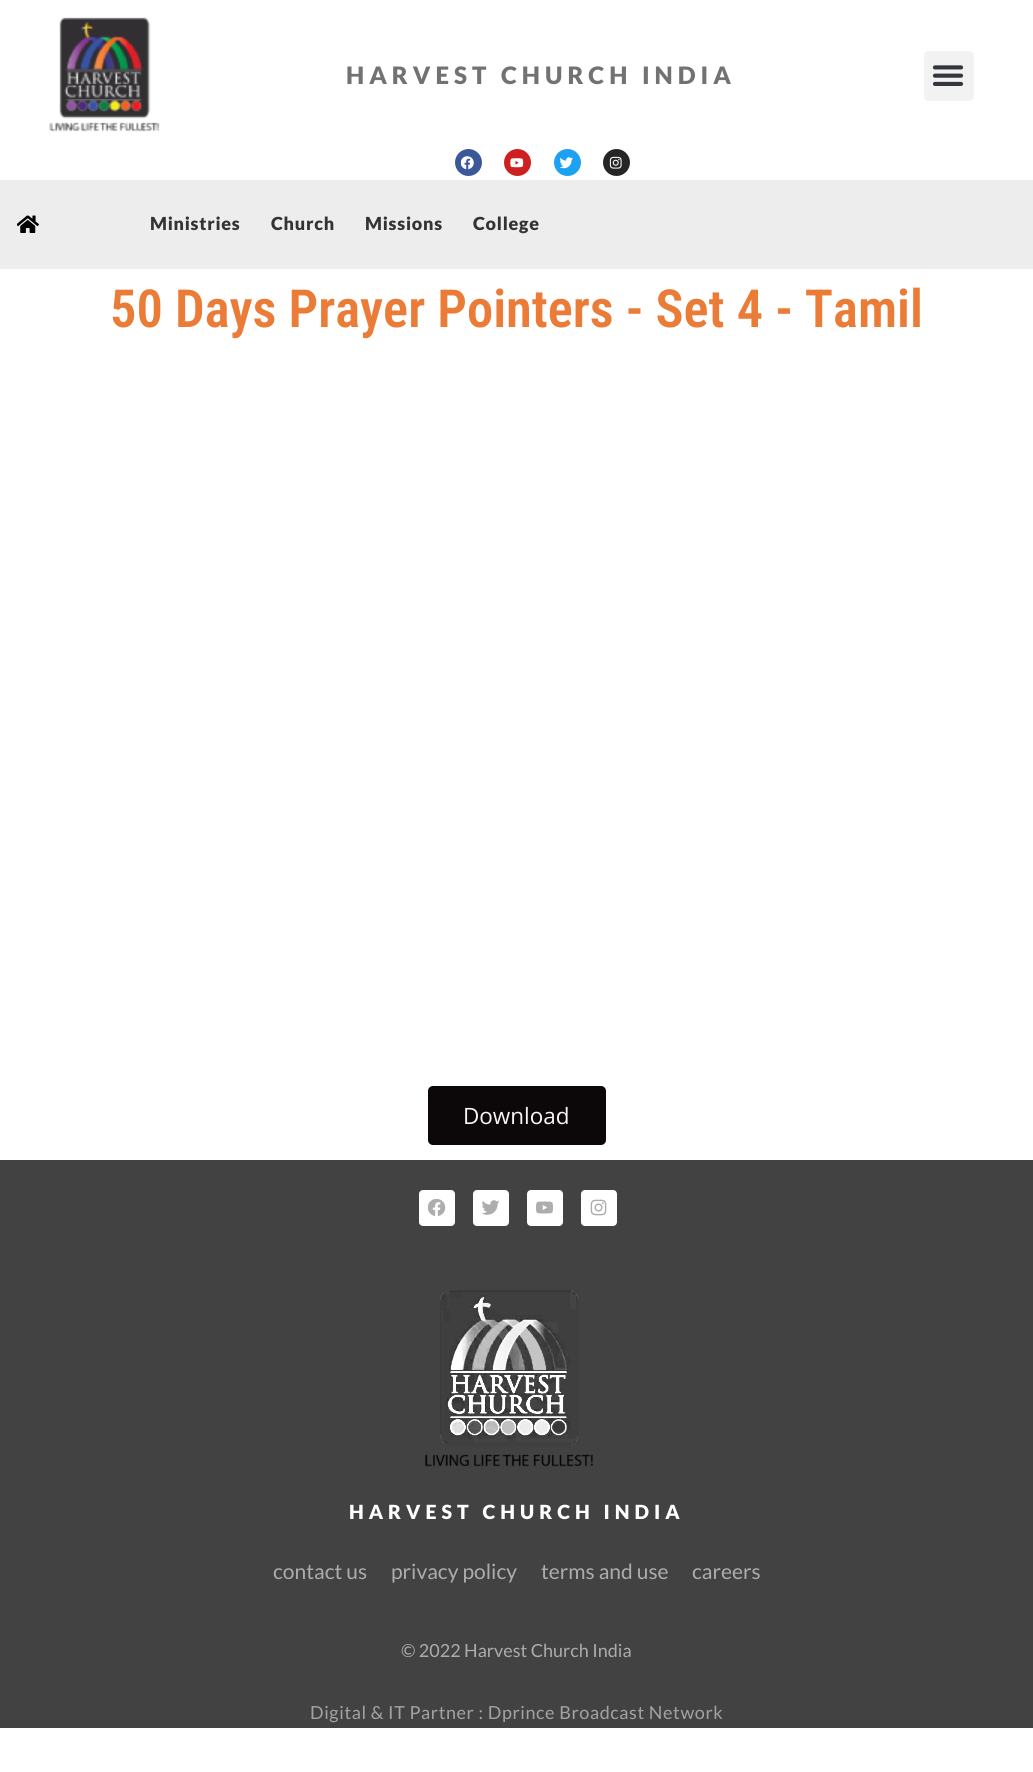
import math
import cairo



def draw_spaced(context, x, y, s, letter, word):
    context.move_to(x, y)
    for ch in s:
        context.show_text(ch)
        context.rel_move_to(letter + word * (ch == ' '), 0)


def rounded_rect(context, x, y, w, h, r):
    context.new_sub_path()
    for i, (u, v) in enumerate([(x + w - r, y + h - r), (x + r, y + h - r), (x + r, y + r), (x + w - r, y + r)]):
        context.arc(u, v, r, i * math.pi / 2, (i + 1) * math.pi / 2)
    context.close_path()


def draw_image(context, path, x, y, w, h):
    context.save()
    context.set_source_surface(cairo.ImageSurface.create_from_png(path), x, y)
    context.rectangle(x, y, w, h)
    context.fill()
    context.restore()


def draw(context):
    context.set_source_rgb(1, 1, 1)
    context.paint()
    draw_image(context, "images/1.png", 49, 17, 111, 115)
    context.set_source_rgb(242 / 255, 242 / 255, 242 / 255)
    rounded_rect(context, 924, 51, 50, 50, 5)
    context.fill()
    draw_image(context, "images/2.png", 932, 65, 32, 21)
    context.set_source_rgb(59 / 255, 89 / 255, 152 / 255)
    context.arc(468.5, 162.5, 13.5, 0, 2 * math.pi)
    context.fill()
    draw_image(context, "images/3.png", 461, 156, 13, 14)
    context.set_source_rgb(205 / 255, 32 / 255, 31 / 255)
    context.arc(517.5, 162.5, 13.5, 0, 2 * math.pi)
    context.fill()
    draw_image(context, "images/4.png", 510, 158, 14, 10)
    context.set_source_rgb(29 / 255, 161 / 255, 242 / 255)
    context.arc(567.5, 162.5, 13.5, 0, 2 * math.pi)
    context.fill()
    draw_image(context, "images/5.png", 560, 157, 13, 12)
    context.set_source_rgb(38 / 255, 38 / 255, 38 / 255)
    context.arc(616.5, 162.5, 13.5, 0, 2 * math.pi)
    context.fill()
    draw_image(context, "images/6.png", 609, 156, 13, 13)
    context.set_source_rgb(237 / 255, 237 / 255, 237 / 255)
    context.rectangle(0, 180, 1033, 89)
    context.fill()
    draw_image(context, "images/7.png", 17, 215, 22, 18)
    context.set_source_rgb(12 / 255, 8 / 255, 9 / 255)
    rounded_rect(context, 428, 1086, 178, 59, 5)
    context.fill()
    context.set_source_rgb(66 / 255, 66 / 255, 66 / 255)
    context.rectangle(0, 1160, 1033, 568)
    context.fill()
    context.set_source_rgb(1, 1, 1)
    rounded_rect(context, 419, 1190, 36, 36, 4)
    context.fill()
    draw_image(context, "images/8.png", 428, 1199, 18, 17)
    rounded_rect(context, 473, 1190, 36, 36, 4)
    context.fill()
    draw_image(context, "images/9.png", 482, 1200, 18, 15)
    rounded_rect(context, 527, 1190, 36, 36, 4)
    context.fill()
    draw_image(context, "images/10.png", 536, 1201, 17, 13)
    rounded_rect(context, 581, 1190, 36, 36, 4)
    context.fill()
    draw_image(context, "images/11.png", 590, 1199, 17, 17)
    draw_image(context, "images/12.png", 425, 1290, 168, 177)
    context.select_font_face("Lato Black")
    context.set_font_size(24)
    context.set_source_rgb(114 / 255, 114 / 255, 114 / 255)
    draw_spaced(context, 346, 84, "HARVEST CHURCH INDIA", 5, 0)
    context.set_font_size(18)
    context.set_source_rgb(51 / 255, 51 / 255, 51 / 255)
    draw_spaced(context, 150, 230, "Ministries", 0.75, 0)
    draw_spaced(context, 271, 230, "Church", 0.75, 0)
    draw_spaced(context, 365, 230, "Missions", 0.75, 0)
    draw_spaced(context, 473, 230, "College", 0.75, 0)
    context.select_font_face("Roboto Condensed SemiBold")
    context.set_font_size(52.5)
    context.set_source_rgb(234 / 255, 124 / 255, 56 / 255)
    context.move_to(110, 327)
    context.show_text("50 Days Prayer Pointers - Set 4 - Tamil")
    context.select_font_face("Open Sans")
    context.set_font_size(22.5)
    context.set_source_rgb(248 / 255, 245 / 255, 245 / 255)
    context.move_to(463, 1124)
    context.show_text("Download")
    context.select_font_face("Lato Black")
    context.set_font_size(19.5)
    context.set_source_rgb(1, 1, 1)
    draw_spaced(context, 349, 1519, "HARVEST CHURCH INDIA", 5, 0)
    context.select_font_face("Lato")
    context.set_font_size(21)
    context.set_source_rgb(172 / 255, 172 / 255, 172 / 255)
    context.move_to(273, 1579)
    context.show_text("contact us")
    context.move_to(391, 1579)
    context.show_text("privacy policy")
    context.move_to(541, 1579)
    context.show_text("terms and use")
    context.move_to(692, 1579)
    context.show_text("careers")
    context.set_font_size(18)
    context.move_to(401, 1657)
    context.show_text("© 2022 Harvest Church India")
    context.set_source_rgb(164 / 255, 163 / 255, 163 / 255)
    draw_spaced(context, 310, 1719, "Digital & IT Partner : Dprince Broadcast Network", 0.6, 0)


surface = cairo.ImageSurface(cairo.Format.RGB24, 1033, 1772)
context = cairo.Context(surface)
options = cairo.FontOptions()
options.set_hint_metrics(cairo.HintMetrics.OFF)
options.set_hint_style(cairo.HintStyle.NONE)
context.set_font_options(options)
context.set_miter_limit(4)
draw(context)
surface.write_to_png("out.png")
